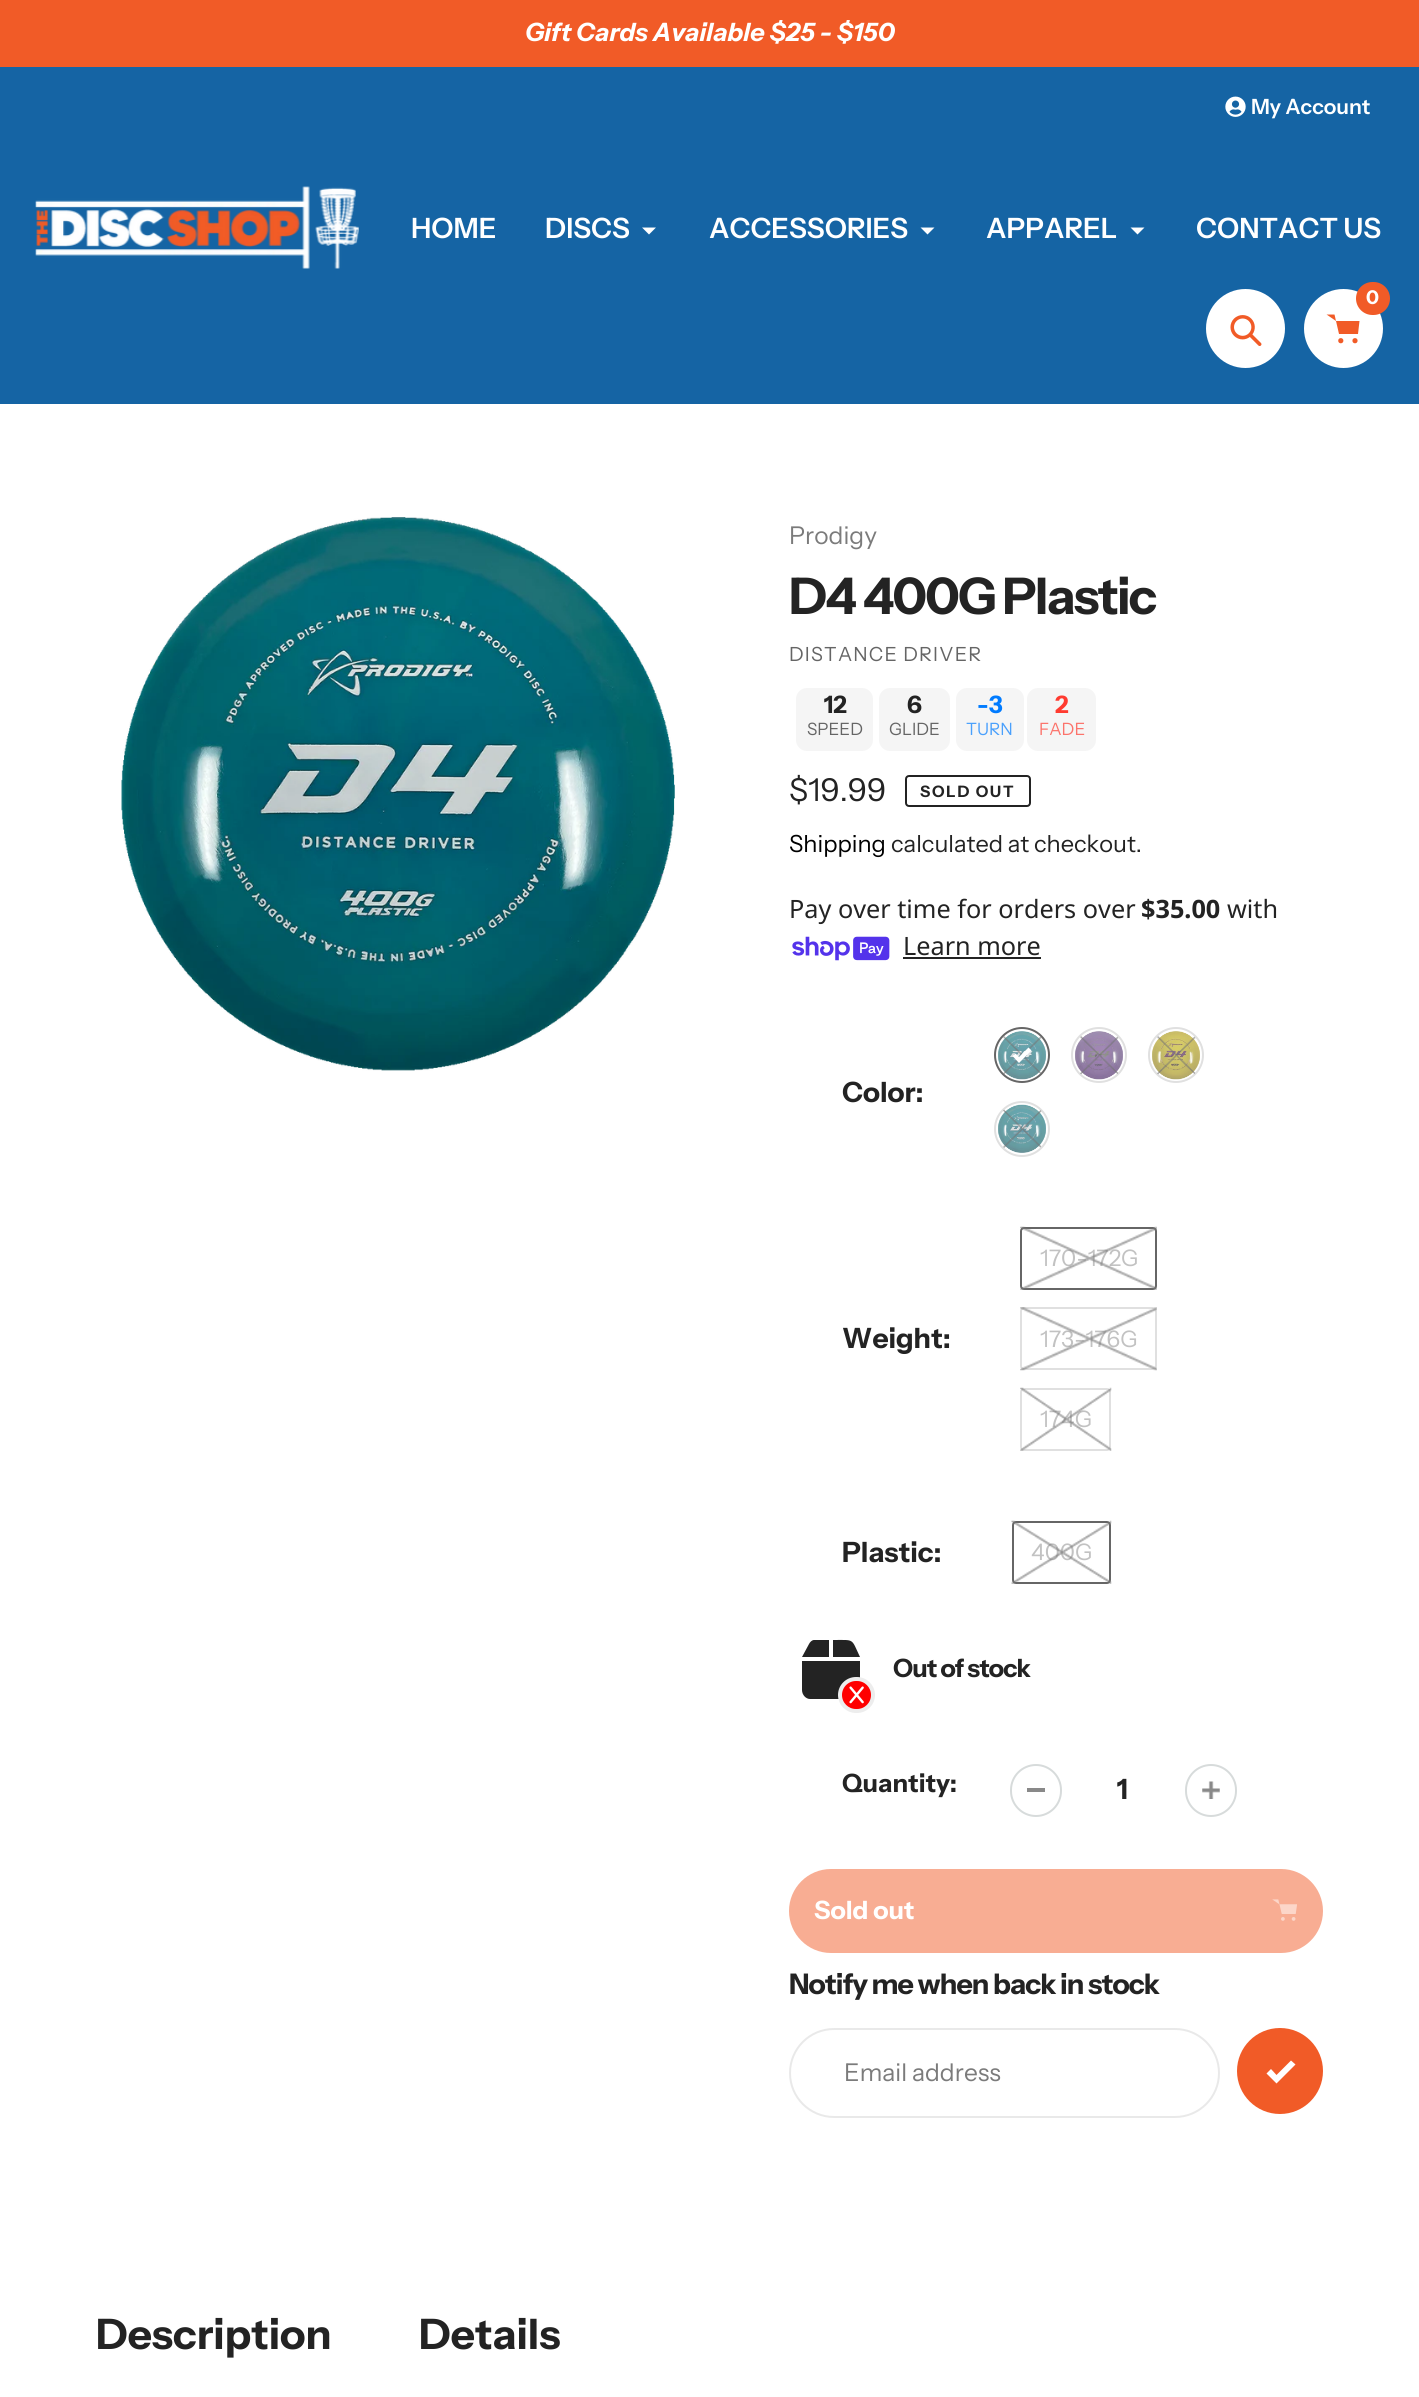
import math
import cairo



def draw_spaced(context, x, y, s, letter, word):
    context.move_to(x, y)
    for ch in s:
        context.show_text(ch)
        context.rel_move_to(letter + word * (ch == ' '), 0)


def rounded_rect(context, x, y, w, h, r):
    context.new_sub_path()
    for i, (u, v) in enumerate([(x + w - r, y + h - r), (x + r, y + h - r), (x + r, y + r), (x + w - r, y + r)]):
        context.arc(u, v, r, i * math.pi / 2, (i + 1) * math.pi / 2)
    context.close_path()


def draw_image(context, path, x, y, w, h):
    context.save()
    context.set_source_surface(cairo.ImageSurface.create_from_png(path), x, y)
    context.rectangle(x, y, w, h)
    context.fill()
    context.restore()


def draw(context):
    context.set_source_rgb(1, 1, 1)
    context.paint()
    context.set_source_rgb(241 / 255, 91 / 255, 39 / 255)
    context.rectangle(0, 0, 1419, 67)
    context.fill()
    context.set_source_rgb(21 / 255, 100 / 255, 164 / 255)
    context.rectangle(0, 67, 1419, 337)
    context.fill()
    draw_image(context, "images/1.png", 1225, 96, 21, 21)
    draw_image(context, "images/2.png", 35, 186, 324, 83)
    context.set_source_rgb(1, 1, 1)
    context.new_path()
    context.move_to(656, 227.5)
    context.line_to(649, 234.5)
    context.line_to(642, 227.5)
    context.fill()
    context.new_path()
    context.move_to(934.5, 227.5)
    context.line_to(927.5, 234.5)
    context.line_to(920.5, 227.5)
    context.fill()
    context.new_path()
    context.move_to(1144.5, 227.5)
    context.line_to(1137.5, 234.5)
    context.line_to(1130.5, 227.5)
    context.fill()
    context.arc(1245.5, 328.5, 39.5, 0, 2 * math.pi)
    context.fill()
    draw_image(context, "images/3.png", 1230, 315, 32, 31)
    context.arc(1343.5, 328.5, 39.5, 0, 2 * math.pi)
    context.fill()
    context.set_source_rgb(241 / 255, 91 / 255, 39 / 255)
    context.set_fill_rule(cairo.FillRule.EVEN_ODD)
    context.new_path()
    context.move_to(1336, 321)
    context.line_to(1359.5, 321)
    context.line_to(1358, 334)
    context.line_to(1339, 334)
    context.line_to(1334.5, 314.5)
    context.line_to(1326.5, 314.5)
    context.fill()
    rounded_rect(context, 1356, 282, 34, 33, 16.5)
    context.fill()
    context.arc(1340.8, 340.7, 2.6, 0, 2 * math.pi)
    context.fill()
    context.arc(1355, 340.7, 2.6, 0, 2 * math.pi)
    context.fill()
    draw_image(context, "images/4.png", 121, 517, 554, 554)
    context.set_source_rgb(245 / 255, 245 / 255, 245 / 255)
    rounded_rect(context, 796, 688, 77, 63, 11)
    context.fill()
    rounded_rect(context, 879, 688, 71, 63, 11)
    context.fill()
    rounded_rect(context, 956, 688, 68, 63, 11)
    context.fill()
    rounded_rect(context, 1027, 688, 69, 63, 11)
    context.fill()
    rounded_rect(context, 906, 776, 124, 30, 3)
    context.set_source_rgb(35 / 255, 35 / 255, 35 / 255)
    context.stroke()
    draw_image(context, "images/5.png", 792, 936, 98, 25)
    context.rectangle(903, 957, 138, 2)
    context.fill()
    draw_image(context, "images/6.png", 998, 1031, 48, 49)
    context.arc(1022, 1055, 27, 0, 2 * math.pi)
    context.set_source_rgb(102 / 255, 102 / 255, 102 / 255)
    context.stroke()
    draw_image(context, "images/7.png", 1003, 1036, 39, 38)
    context.set_source_rgb(1, 1, 1)
    context.set_fill_rule(cairo.FillRule.WINDING)
    context.new_path()
    context.move_to(1019, 1063)
    context.line_to(1012.5, 1056)
    context.line_to(1015.5, 1053.5)
    context.line_to(1019, 1057)
    context.line_to(1028.5, 1047.5)
    context.line_to(1031.5, 1050.5)
    context.close_path()
    context.fill()
    draw_image(context, "images/8.png", 1075, 1031, 48, 49)
    context.arc(1099, 1055, 27, 0, 2 * math.pi)
    context.set_source_rgb(224 / 255, 224 / 255, 224 / 255)
    context.stroke()
    draw_image(context, "images/9.png", 1080, 1036, 39, 39)
    draw_image(context, "images/10.png", 1152, 1031, 48, 49)
    context.arc(1176, 1055, 27, 0, 2 * math.pi)
    context.stroke()
    draw_image(context, "images/11.png", 1157, 1036, 39, 39)
    draw_image(context, "images/12.png", 998, 1104, 48, 49)
    context.arc(1022, 1129, 27, 0, 2 * math.pi)
    context.stroke()
    draw_image(context, "images/13.png", 1003, 1109, 39, 39)
    rounded_rect(context, 1021, 1228, 135, 61, 3)
    context.set_source_rgb(102 / 255, 102 / 255, 102 / 255)
    context.stroke()
    rounded_rect(context, 1021, 1308, 135, 61, 3)
    context.set_source_rgb(224 / 255, 224 / 255, 224 / 255)
    context.stroke()
    rounded_rect(context, 1021, 1389, 89, 61, 3)
    context.stroke()
    rounded_rect(context, 1013, 1522, 97, 61, 3)
    context.set_source_rgb(102 / 255, 102 / 255, 102 / 255)
    context.stroke()
    context.set_source_rgb(35 / 255, 35 / 255, 35 / 255)
    context.new_path()
    context.move_to(809, 1644)
    context.line_to(802, 1657)
    context.line_to(829, 1657)
    context.line_to(829, 1640)
    context.line_to(814, 1640)
    context.curve_to(812, 1640, 810, 1642, 809, 1644)
    context.close_path()
    context.move_to(833, 1657)
    context.line_to(860, 1657)
    context.curve_to(851, 1638, 855, 1640, 833, 1640)
    context.close_path()
    context.move_to(860, 1661)
    context.line_to(802, 1661)
    context.line_to(802, 1690)
    context.curve_to(802, 1695, 806, 1699, 810, 1699)
    context.line_to(852, 1699)
    context.curve_to(857, 1699, 860, 1695, 860, 1690)
    context.close_path()
    context.fill()
    context.set_source_rgb(1, 0, 0)
    rounded_rect(context, 840, 1679, 33, 32, 16)
    context.fill_preserve()
    context.set_source_rgb(237 / 255, 237 / 255, 237 / 255)
    context.set_line_width(4)
    context.stroke()
    draw_image(context, "images/18.png", 849, 1686, 15, 18)
    context.set_source_rgb(137 / 255, 137 / 255, 137 / 255)
    context.rectangle(1027, 1788, 18, 4)
    context.fill()
    rounded_rect(context, 1011, 1765, 50, 51, 25)
    context.set_source_rgb(215 / 255, 219 / 255, 219 / 255)
    context.set_line_width(2)
    context.stroke()
    draw_image(context, "images/19.png", 1202, 1781, 18, 18)
    rounded_rect(context, 1186, 1765, 50, 51, 25)
    context.stroke()
    context.set_source_rgb(248 / 255, 173 / 255, 147 / 255)
    rounded_rect(context, 789, 1869, 534, 84, 42)
    context.fill()
    draw_image(context, "images/20.png", 1272, 1899, 25, 22)
    rounded_rect(context, 790, 2029, 429, 88, 44)
    context.set_source_rgb(233 / 255, 233 / 255, 233 / 255)
    context.stroke()
    context.set_source_rgb(241 / 255, 91 / 255, 39 / 255)
    context.arc(1280, 2071, 43, 0, 2 * math.pi)
    context.fill()
    context.set_source_rgb(1, 1, 1)
    context.new_path()
    context.move_to(1276.5, 2083.5)
    context.line_to(1266.5, 2073.5)
    context.line_to(1271, 2069)
    context.line_to(1276.5, 2075)
    context.line_to(1291, 2060.5)
    context.line_to(1295.5, 2064.5)
    context.close_path()
    context.fill()
    context.select_font_face("Instrument Sans", cairo.FontSlant.ITALIC, cairo.FontWeight.BOLD)
    context.set_font_size(25.25)
    context.move_to(525, 41)
    context.show_text("Gift Cards Available $25 - $150")
    context.select_font_face("Instrument Sans SemiBold")
    context.set_font_size(21)
    context.move_to(1251, 114)
    context.show_text("My Account")
    context.set_font_size(28)
    context.move_to(411, 238)
    context.show_text("HOME")
    context.move_to(545, 238)
    context.show_text("DISCS")
    context.move_to(709, 238)
    context.show_text("ACCESSORIES")
    context.move_to(986, 238)
    context.show_text("APPAREL")
    context.move_to(1196, 238)
    context.show_text("CONTACT US")
    context.select_font_face("Instrument Sans", cairo.FontSlant.NORMAL, cairo.FontWeight.BOLD)
    context.set_font_size(19)
    context.move_to(1366, 304)
    context.show_text("0")
    context.select_font_face("Instrument Sans")
    context.set_font_size(24.5)
    context.set_source_rgb(123 / 255, 123 / 255, 123 / 255)
    context.move_to(789, 544)
    context.show_text("Prodigy")
    context.select_font_face("Instrument Sans", cairo.FontSlant.NORMAL, cairo.FontWeight.BOLD)
    context.set_font_size(50.5)
    context.set_source_rgb(35 / 255, 35 / 255, 35 / 255)
    draw_spaced(context, 789, 614, "D4 400G Plastic", -1.75, 0)
    context.select_font_face("Instrument Sans")
    context.set_font_size(19.5)
    context.set_source_rgb(101 / 255, 101 / 255, 101 / 255)
    draw_spaced(context, 789, 661, "DISTANCE DRIVER", 1.2, 0)
    context.select_font_face("Instrument Sans", cairo.FontSlant.NORMAL, cairo.FontWeight.BOLD)
    context.set_font_size(24)
    context.set_source_rgb(35 / 255, 35 / 255, 35 / 255)
    context.move_to(824, 713)
    context.show_text("12")
    context.select_font_face("Instrument Sans")
    context.set_font_size(17)
    context.set_source_rgb(101 / 255, 101 / 255, 101 / 255)
    context.move_to(807, 735)
    context.show_text("SPEED")
    context.select_font_face("Instrument Sans", cairo.FontSlant.NORMAL, cairo.FontWeight.BOLD)
    context.set_font_size(24)
    context.set_source_rgb(35 / 255, 35 / 255, 35 / 255)
    context.move_to(907, 713)
    context.show_text("6")
    context.select_font_face("Instrument Sans")
    context.set_font_size(17)
    context.set_source_rgb(101 / 255, 101 / 255, 101 / 255)
    context.move_to(889, 735)
    context.show_text("GLIDE")
    context.select_font_face("Instrument Sans", cairo.FontSlant.NORMAL, cairo.FontWeight.BOLD)
    context.set_font_size(24)
    context.set_source_rgb(0, 123 / 255, 1)
    context.move_to(977, 713)
    context.show_text("-3")
    context.select_font_face("Instrument Sans")
    context.set_font_size(17)
    context.set_source_rgb(74 / 255, 160 / 255, 252 / 255)
    context.move_to(966, 735)
    context.show_text("TURN")
    context.select_font_face("Instrument Sans", cairo.FontSlant.NORMAL, cairo.FontWeight.BOLD)
    context.set_font_size(24)
    context.set_source_rgb(1, 59 / 255, 48 / 255)
    context.move_to(1055, 713)
    context.show_text("2")
    context.select_font_face("Instrument Sans")
    context.set_font_size(17)
    context.set_source_rgb(252 / 255, 115 / 255, 107 / 255)
    context.move_to(1039, 735)
    context.show_text("FADE")
    context.set_font_size(31.5)
    context.set_source_rgb(35 / 255, 35 / 255, 35 / 255)
    context.move_to(789, 801)
    context.show_text("$19.99")
    context.select_font_face("Instrument Sans", cairo.FontSlant.NORMAL, cairo.FontWeight.BOLD)
    context.set_font_size(15.75)
    draw_spaced(context, 920, 797, "SOLD OUT", 1.75, 0)
    context.select_font_face("Instrument Sans")
    context.set_font_size(23.6)
    context.set_source_rgb(0, 0, 0)
    context.move_to(789, 852)
    context.show_text("Shipping")
    context.set_source_rgb(35 / 255, 35 / 255, 35 / 255)
    context.move_to(891, 852)
    context.show_text("calculated at checkout.")
    context.select_font_face("Noto Sans")
    context.set_font_size(25.25)
    context.move_to(789, 918)
    context.show_text("Pay over time for orders over")
    context.select_font_face("Noto Sans", cairo.FontSlant.NORMAL, cairo.FontWeight.BOLD)
    context.move_to(1141, 918)
    context.show_text("$35.00")
    context.select_font_face("Noto Sans")
    context.move_to(1227, 918)
    context.show_text("with")
    context.move_to(903, 955)
    context.show_text("Learn more")
    context.select_font_face("Instrument Sans", cairo.FontSlant.NORMAL, cairo.FontWeight.BOLD)
    context.set_font_size(28)
    context.move_to(842, 1102)
    context.show_text("Color:")
    context.move_to(842, 1348)
    context.show_text("Weight:")
    context.select_font_face("Instrument Sans")
    context.set_font_size(22.75)
    context.set_source_rgb(194 / 255, 194 / 255, 194 / 255)
    context.move_to(1040, 1266)
    context.show_text("170-172G")
    draw_image(context, "images/14.png", 1020, 1226, 137, 64)
    context.move_to(1040, 1347)
    context.show_text("173-176G")
    draw_image(context, "images/15.png", 1020, 1307, 137, 64)
    context.move_to(1040, 1427)
    context.show_text("174G")
    draw_image(context, "images/16.png", 1020, 1387, 92, 64)
    context.select_font_face("Instrument Sans", cairo.FontSlant.NORMAL, cairo.FontWeight.BOLD)
    context.set_font_size(28)
    context.set_source_rgb(35 / 255, 35 / 255, 35 / 255)
    context.move_to(842, 1562)
    context.show_text("Plastic:")
    context.select_font_face("Instrument Sans")
    context.set_font_size(22.75)
    context.set_source_rgb(194 / 255, 194 / 255, 194 / 255)
    context.move_to(1031, 1560)
    context.show_text("400G")
    draw_image(context, "images/17.png", 1011, 1520, 101, 64)
    context.select_font_face("Instrument Sans", cairo.FontSlant.NORMAL, cairo.FontWeight.BOLD)
    context.set_font_size(25.25)
    context.set_source_rgb(35 / 255, 35 / 255, 35 / 255)
    draw_spaced(context, 893, 1677, "Out of stock", -0.9, 0)
    context.move_to(842, 1792)
    context.show_text("Quantity:")
    context.set_font_size(28)
    context.move_to(1117, 1799)
    context.show_text("1")
    context.set_font_size(25.25)
    context.set_source_rgb(1, 1, 1)
    context.move_to(814, 1919)
    context.show_text("Sold out")
    context.set_font_size(28.4)
    context.set_source_rgb(35 / 255, 35 / 255, 35 / 255)
    draw_spaced(context, 789, 1994, "Notify me when back in stock", -0.9, 0)
    context.select_font_face("Instrument Sans")
    context.set_font_size(24.5)
    context.set_source_rgb(123 / 255, 123 / 255, 123 / 255)
    context.move_to(844, 2081)
    context.show_text("Email address")
    context.select_font_face("Instrument Sans", cairo.FontSlant.NORMAL, cairo.FontWeight.BOLD)
    context.set_font_size(42)
    context.set_source_rgb(35 / 255, 35 / 255, 35 / 255)
    context.move_to(96, 2349)
    context.show_text("Description")
    context.move_to(419, 2349)
    context.show_text("Details")


surface = cairo.ImageSurface(cairo.Format.RGB24, 1419, 2397)
context = cairo.Context(surface)
options = cairo.FontOptions()
options.set_hint_metrics(cairo.HintMetrics.OFF)
options.set_hint_style(cairo.HintStyle.NONE)
context.set_font_options(options)
context.set_miter_limit(4)
draw(context)
surface.write_to_png("out.png")
